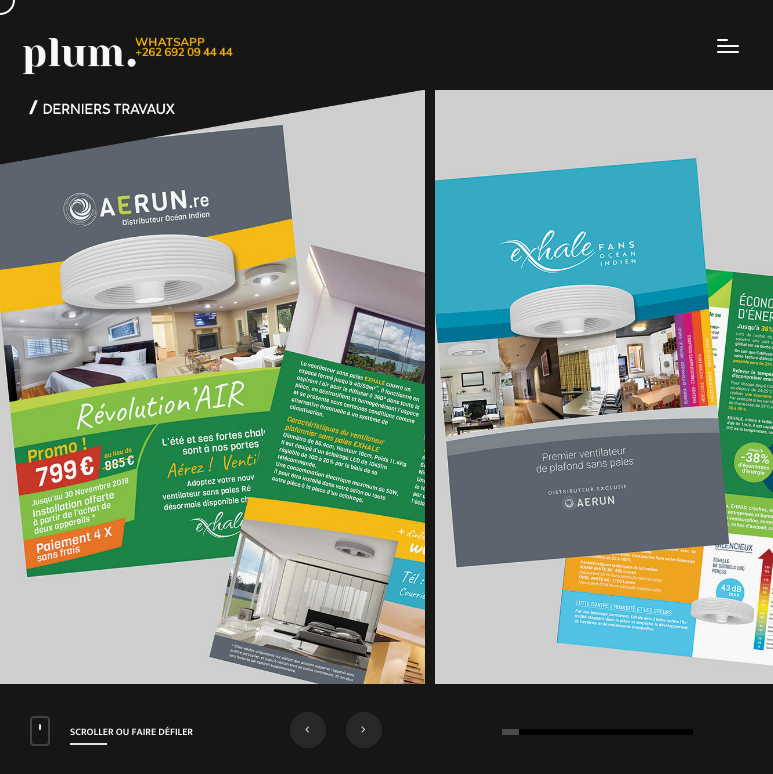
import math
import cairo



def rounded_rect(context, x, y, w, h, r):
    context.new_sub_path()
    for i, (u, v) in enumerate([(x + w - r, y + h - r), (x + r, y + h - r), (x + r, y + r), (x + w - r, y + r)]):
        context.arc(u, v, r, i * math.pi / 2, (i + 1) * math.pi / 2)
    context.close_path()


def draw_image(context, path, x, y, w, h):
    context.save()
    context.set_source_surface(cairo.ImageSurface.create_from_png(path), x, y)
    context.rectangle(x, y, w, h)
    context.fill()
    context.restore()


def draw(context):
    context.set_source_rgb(22 / 255, 22 / 255, 22 / 255)
    context.paint()
    context.arc(0, 0, 14, 0, 2 * math.pi)
    context.set_source_rgb(249 / 255, 249 / 255, 249 / 255)
    context.stroke()
    draw_image(context, "images/1.png", 22, 37, 211, 38)
    rounded_rect(context, 717, 39, 11, 2, 1)
    context.fill()
    rounded_rect(context, 717, 45, 22, 2, 1)
    context.fill()
    rounded_rect(context, 717, 51, 22, 2, 1)
    context.fill()
    draw_image(context, "images/2.png", 0, 90, 425, 594)
    draw_image(context, "images/3.png", 435, 90, 338, 594)
    rounded_rect(context, 31, 717, 18, 28, 3)
    context.set_source_rgb(67 / 255, 67 / 255, 67 / 255)
    context.stroke()
    context.set_source_rgb(226 / 255, 226 / 255, 226 / 255)
    context.new_path()
    context.move_to(39.5, 724)
    context.curve_to(41.5, 724, 41, 725.5, 41, 727.5)
    context.curve_to(41, 729, 41.5, 730, 39.5, 730)
    context.curve_to(38.5, 730, 39, 724, 39.5, 724)
    context.close_path()
    context.fill()
    context.rectangle(70, 743, 37, 2)
    context.fill()
    context.set_source_rgb(40 / 255, 40 / 255, 40 / 255)
    context.arc(308, 730, 18, 0, 2 * math.pi)
    context.fill()
    draw_image(context, "images/4.png", 305, 726, 4, 7)
    context.arc(364, 730, 18, 0, 2 * math.pi)
    context.fill()
    draw_image(context, "images/5.png", 361, 726, 4, 7)
    context.set_source_rgb(75 / 255, 75 / 255, 75 / 255)
    context.rectangle(502, 729, 17, 6)
    context.fill()
    context.set_source_rgb(1 / 255, 1 / 255, 1 / 255)
    context.rectangle(519, 729, 174, 6)
    context.fill()
    context.select_font_face("Ek Mukta SemiBold")
    context.set_font_size(10)
    context.set_source_rgb(249 / 255, 249 / 255, 249 / 255)
    context.move_to(70, 735)
    context.show_text("SCROLLER OU FAIRE DÉFILER")


surface = cairo.ImageSurface(cairo.Format.RGB24, 773, 774)
context = cairo.Context(surface)
options = cairo.FontOptions()
options.set_hint_metrics(cairo.HintMetrics.OFF)
options.set_hint_style(cairo.HintStyle.NONE)
context.set_font_options(options)
context.set_miter_limit(4)
draw(context)
surface.write_to_png("out.png")
